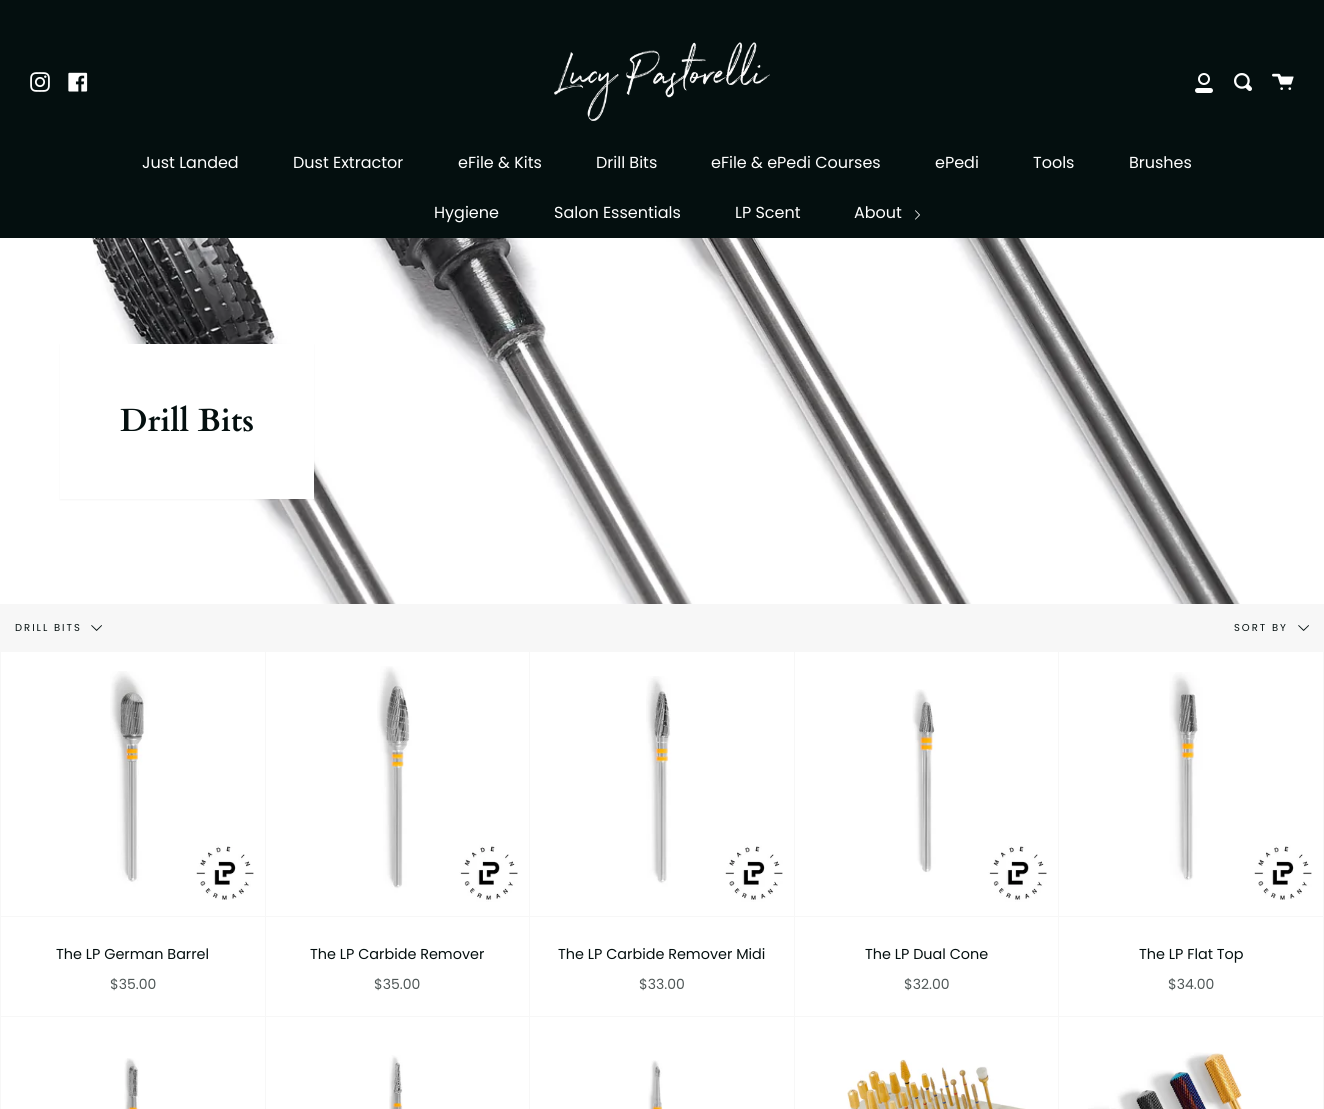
import math
import cairo



def draw_spaced(context, x, y, s, letter, word):
    context.move_to(x, y)
    for ch in s:
        context.show_text(ch)
        context.rel_move_to(letter + word * (ch == ' '), 0)


def rounded_rect(context, x, y, w, h, r):
    context.new_sub_path()
    for i, (u, v) in enumerate([(x + w - r, y + h - r), (x + r, y + h - r), (x + r, y + r), (x + w - r, y + r)]):
        context.arc(u, v, r, i * math.pi / 2, (i + 1) * math.pi / 2)
    context.close_path()


def draw_shadow(context, x, y, w, h, r, blur, alpha):
    context.push_group_with_content(cairo.Content.ALPHA)
    context.set_operator(cairo.Operator.SOURCE)
    for i in range(15, -16, -2):
        e = blur * i / 6
        if min(w, h) + 2 * e > 0:
            context.set_source_rgba(0, 0, 0, alpha * math.erfc((i - 1) / 8.5) / 2)
            rounded_rect(context, x - e, y - e, w + 2 * e, h + 2 * e, max(0, min(r + e + blur * .6, min(w, h) / 2 + e)))
            context.fill()
    context.mask(context.pop_group())


def draw_image(context, path, x, y, w, h):
    context.save()
    context.set_source_surface(cairo.ImageSurface.create_from_png(path), x, y)
    context.rectangle(x, y, w, h)
    context.fill()
    context.restore()


def draw(context):
    context.set_source_rgb(1, 1, 1)
    context.paint()
    context.set_source_rgb(4 / 255, 15 / 255, 15 / 255)
    context.rectangle(0, 0, 1324, 28)
    context.fill()
    context.rectangle(0, 28, 1324, 210)
    context.fill()
    draw_image(context, "images/1.png", 30, 72, 20, 20)
    draw_image(context, "images/2.png", 68, 72, 20, 20)
    draw_image(context, "images/3.png", 554, 42, 216, 79)
    draw_image(context, "images/4.png", 1195, 73, 18, 20)
    draw_image(context, "images/5.png", 1234, 73, 18, 18)
    draw_image(context, "images/6.png", 1272, 73, 22, 17)
    draw_image(context, "images/7.png", 915, 210, 5, 10)
    draw_image(context, "images/8.png", 90, 238, 1150, 366)
    context.set_source_rgb(0, 0, 0)
    draw_shadow(context, 60, 345, 254, 155, 0, 1, 0.04)
    context.set_source_rgb(1, 1, 1)
    context.rectangle(60, 344, 254, 155)
    context.fill()
    context.set_source_rgb(247 / 255, 247 / 255, 247 / 255)
    context.rectangle(0, 604, 1324, 47)
    context.fill()
    draw_image(context, "images/9.png", 91, 625, 11, 6)
    draw_image(context, "images/9.png", 1298, 625, 11, 6)
    context.rectangle(0, 651, 1, 458)
    context.fill()
    context.rectangle(1, 651, 1323, 1)
    context.fill()
    context.rectangle(265, 651, 1, 366)
    context.fill()
    context.rectangle(1, 916, 264, 1)
    context.fill()
    draw_image(context, "images/10.png", 110, 671, 144, 229)
    context.rectangle(529, 651, 1, 366)
    context.fill()
    context.rectangle(266, 916, 263, 1)
    context.fill()
    draw_image(context, "images/11.png", 377, 666, 141, 236)
    context.rectangle(794, 651, 1, 366)
    context.fill()
    context.rectangle(530, 916, 264, 1)
    context.fill()
    draw_image(context, "images/12.png", 646, 676, 137, 226)
    context.rectangle(1058, 651, 1, 366)
    context.fill()
    context.rectangle(795, 916, 263, 1)
    context.fill()
    draw_image(context, "images/13.png", 912, 689, 135, 213)
    context.rectangle(1323, 651, 1, 366)
    context.fill()
    context.rectangle(1059, 916, 264, 1)
    context.fill()
    draw_image(context, "images/14.png", 1169, 672, 143, 228)
    context.rectangle(1, 1016, 1323, 1)
    context.fill()
    context.rectangle(265, 1016, 1, 93)
    context.fill()
    draw_image(context, "images/15.png", 124, 1058, 16, 51)
    context.rectangle(529, 1016, 1, 93)
    context.fill()
    draw_image(context, "images/16.png", 389, 1055, 14, 54)
    context.rectangle(794, 1016, 1, 93)
    context.fill()
    draw_image(context, "images/17.png", 648, 1060, 15, 49)
    context.rectangle(1058, 1016, 1, 93)
    context.fill()
    draw_image(context, "images/18.png", 847, 1059, 179, 50)
    context.rectangle(1323, 1016, 1, 93)
    context.fill()
    draw_image(context, "images/19.png", 1088, 1052, 154, 57)
    context.select_font_face("Poppins")
    context.set_font_size(16)
    context.set_source_rgb(1, 1, 1)
    context.move_to(142, 168)
    context.show_text("Just Landed")
    context.move_to(293, 168)
    context.show_text("Dust Extractor")
    context.move_to(458, 168)
    context.show_text("eFile & Kits")
    context.move_to(596, 168)
    context.show_text("Drill Bits")
    context.move_to(711, 168)
    context.show_text("eFile & ePedi Courses")
    context.move_to(935, 168)
    context.show_text("ePedi")
    context.move_to(1033, 168)
    context.show_text("Tools")
    context.move_to(1129, 168)
    context.show_text("Brushes")
    context.move_to(434, 218)
    context.show_text("Hygiene")
    context.move_to(554, 218)
    context.show_text("Salon Essentials")
    context.move_to(735, 218)
    context.show_text("LP Scent")
    context.move_to(854, 218)
    context.show_text("About")
    context.select_font_face("Cardo", cairo.FontSlant.NORMAL, cairo.FontWeight.BOLD)
    context.set_font_size(32)
    context.set_source_rgb(4 / 255, 15 / 255, 15 / 255)
    context.move_to(120, 431)
    context.show_text("Drill Bits")
    context.select_font_face("Poppins")
    context.set_font_size(10)
    draw_spaced(context, 15, 631, "DRILL BITS", 2, 0)
    draw_spaced(context, 1234, 631, "SORT BY", 2, 0)
    context.set_font_size(14.4)
    context.move_to(56, 959)
    context.show_text("The LP German Barrel")
    context.set_font_size(14)
    context.set_source_rgb(79 / 255, 87 / 255, 87 / 255)
    context.move_to(110, 989)
    context.show_text("$35.00")
    context.set_font_size(14.4)
    context.set_source_rgb(4 / 255, 15 / 255, 15 / 255)
    context.move_to(310, 959)
    context.show_text("The LP Carbide Remover")
    context.set_font_size(14)
    context.set_source_rgb(79 / 255, 87 / 255, 87 / 255)
    context.move_to(374, 989)
    context.show_text("$35.00")
    context.set_font_size(14.4)
    context.set_source_rgb(4 / 255, 15 / 255, 15 / 255)
    context.move_to(558, 959)
    context.show_text("The LP Carbide Remover Midi")
    context.set_font_size(14)
    context.set_source_rgb(79 / 255, 87 / 255, 87 / 255)
    context.move_to(639, 989)
    context.show_text("$33.00")
    context.set_font_size(14.4)
    context.set_source_rgb(4 / 255, 15 / 255, 15 / 255)
    context.move_to(865, 959)
    context.show_text("The LP Dual Cone")
    context.set_font_size(14)
    context.set_source_rgb(79 / 255, 87 / 255, 87 / 255)
    context.move_to(904, 989)
    context.show_text("$32.00")
    context.set_font_size(14.4)
    context.set_source_rgb(4 / 255, 15 / 255, 15 / 255)
    context.move_to(1139, 959)
    context.show_text("The LP Flat Top")
    context.set_font_size(14)
    context.set_source_rgb(79 / 255, 87 / 255, 87 / 255)
    context.move_to(1168, 989)
    context.show_text("$34.00")


surface = cairo.ImageSurface(cairo.Format.RGB24, 1324, 1109)
context = cairo.Context(surface)
options = cairo.FontOptions()
options.set_hint_metrics(cairo.HintMetrics.OFF)
options.set_hint_style(cairo.HintStyle.NONE)
context.set_font_options(options)
context.set_miter_limit(4)
draw(context)
surface.write_to_png("out.png")
